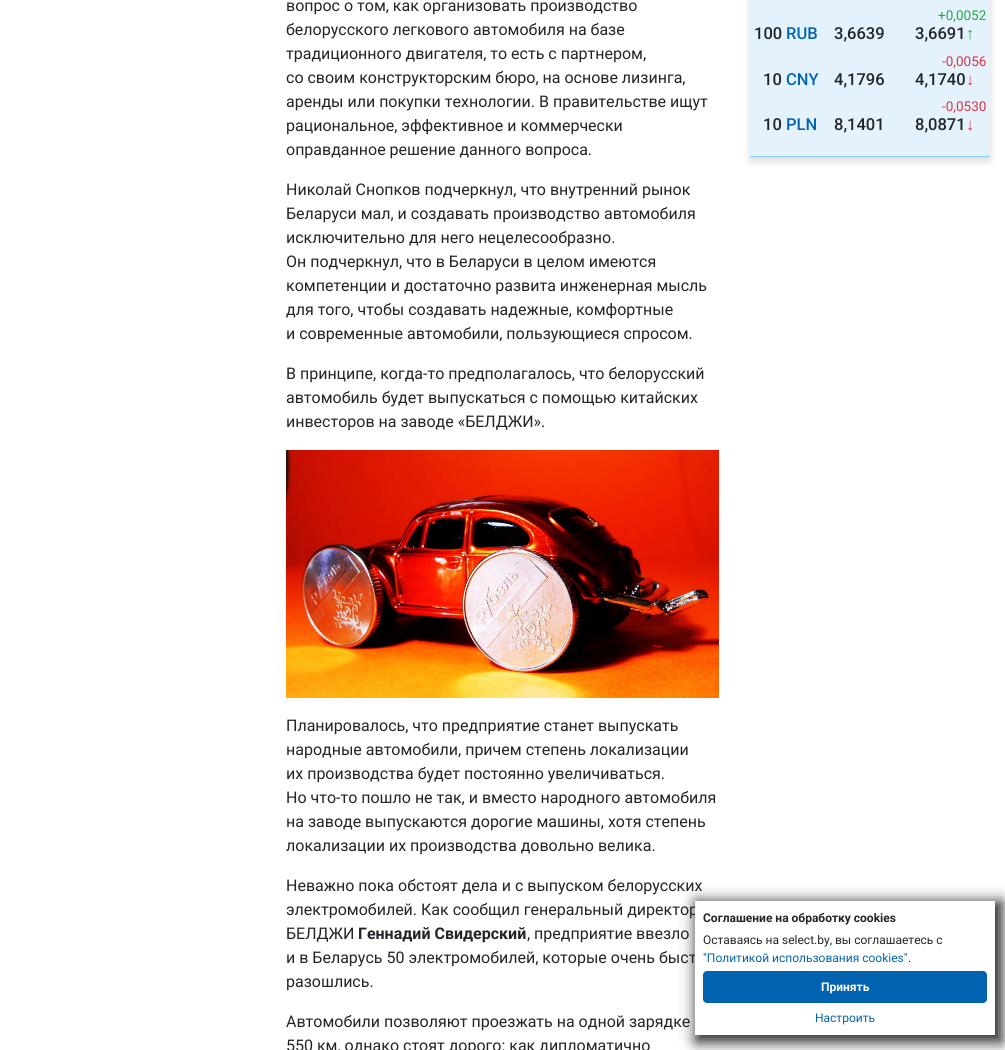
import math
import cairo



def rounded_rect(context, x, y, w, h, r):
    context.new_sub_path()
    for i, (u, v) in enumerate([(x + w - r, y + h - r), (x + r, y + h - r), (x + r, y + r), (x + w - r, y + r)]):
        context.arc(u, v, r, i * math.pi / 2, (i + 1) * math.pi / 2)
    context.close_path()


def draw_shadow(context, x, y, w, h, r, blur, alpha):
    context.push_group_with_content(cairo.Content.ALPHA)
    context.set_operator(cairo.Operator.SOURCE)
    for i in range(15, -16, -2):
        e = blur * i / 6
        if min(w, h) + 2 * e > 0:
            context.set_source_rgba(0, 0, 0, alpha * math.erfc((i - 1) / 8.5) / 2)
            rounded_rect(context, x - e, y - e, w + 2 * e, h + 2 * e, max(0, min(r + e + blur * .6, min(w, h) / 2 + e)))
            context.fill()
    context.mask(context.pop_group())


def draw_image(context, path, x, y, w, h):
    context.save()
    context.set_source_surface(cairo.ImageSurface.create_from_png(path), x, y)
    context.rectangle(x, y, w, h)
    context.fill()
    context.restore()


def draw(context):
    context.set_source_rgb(1, 1, 1)
    context.paint()
    draw_image(context, "images/1.png", 286, 450, 433, 248)
    context.set_source_rgb(0, 0, 0)
    draw_shadow(context, 750, -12, 240, 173, 0, 4, 0.15)
    context.set_source_rgb(227 / 255, 242 / 255, 253 / 255)
    context.rectangle(750, 0, 240, 156)
    context.fill()
    context.set_source_rgb(144 / 255, 202 / 255, 249 / 255)
    context.rectangle(750, 156, 240, 1)
    context.fill()
    context.set_source_rgb(34 / 255, 34 / 255, 34 / 255)
    draw_shadow(context, 696, 902, 306, 140, 0, 7.5, 1)
    context.select_font_face("Roboto")
    context.set_font_size(16)
    context.set_source_rgb(33 / 255, 37 / 255, 41 / 255)
    context.move_to(286, 11)
    context.show_text("вопрос о том, как организовать производство")
    context.move_to(286, 35)
    context.show_text("белорусского легкового автомобиля на базе")
    context.move_to(286, 59)
    context.show_text("традиционного двигателя, то есть с партнером,")
    context.move_to(286, 83)
    context.show_text("со своим конструкторским бюро, на основе лизинга,")
    context.move_to(286, 107)
    context.show_text("аренды или покупки технологии. В правительстве ищут")
    context.move_to(286, 131)
    context.show_text("рациональное, эффективное и коммерчески")
    context.move_to(286, 155)
    context.show_text("оправданное решение данного вопроса.")
    context.move_to(286, 195)
    context.show_text("Николай Снопков подчеркнул, что внутренний рынок")
    context.move_to(286, 219)
    context.show_text("Беларуси мал, и создавать производство автомобиля")
    context.move_to(286, 243)
    context.show_text("исключительно для него нецелесообразно.")
    context.move_to(286, 267)
    context.show_text("Он подчеркнул, что в Беларуси в целом имеются")
    context.move_to(286, 291)
    context.show_text("компетенции и достаточно развита инженерная мысль")
    context.move_to(286, 315)
    context.show_text("для того, чтобы создавать надежные, комфортные")
    context.move_to(286, 339)
    context.show_text("и современные автомобили, пользующиеся спросом.")
    context.move_to(286, 379)
    context.show_text("В принципе, когда-то предполагалось, что белорусский")
    context.move_to(286, 403)
    context.show_text("автомобиль будет выпускаться с помощью китайских")
    context.move_to(286, 427)
    context.show_text("инвесторов на заводе «БЕЛДЖИ».")
    context.move_to(286, 731)
    context.show_text("Планировалось, что предприятие станет выпускать")
    context.move_to(286, 755)
    context.show_text("народные автомобили, причем степень локализации")
    context.move_to(286, 779)
    context.show_text("их производства будет постоянно увеличиваться.")
    context.move_to(286, 803)
    context.show_text("Но что-то пошло не так, и вместо народного автомобиля")
    context.move_to(286, 827)
    context.show_text("на заводе выпускаются дорогие машины, хотя степень")
    context.move_to(286, 851)
    context.show_text("локализации их производства довольно велика.")
    context.move_to(286, 891)
    context.show_text("Неважно пока обстоят дела и с выпуском белорусских")
    context.move_to(286, 915)
    context.show_text("электромобилей. Как сообщил генеральный директор")
    context.move_to(286, 939)
    context.show_text("БЕЛДЖИ")
    context.select_font_face("Roboto", cairo.FontSlant.NORMAL, cairo.FontWeight.BOLD)
    context.move_to(358, 939)
    context.show_text("Геннадий Свидерский")
    context.select_font_face("Roboto")
    context.move_to(527, 939)
    context.show_text(", предприятие ввезло")
    context.move_to(286, 963)
    context.show_text("и в Беларусь 50 электромобилей, которые очень быст")
    context.move_to(286, 987)
    context.show_text("разошлись.")
    context.move_to(286, 1027)
    context.show_text("Автомобили позволяют проезжать на одной зарядке")
    context.move_to(286, 1051)
    context.show_text("550 км, однако стоят дорого: как дипломатично")
    context.select_font_face("Roboto Medium")
    context.set_font_size(16.5)
    context.move_to(754, 39)
    context.show_text("100")
    context.set_source_rgb(2 / 255, 100 / 255, 176 / 255)
    context.move_to(786, 39)
    context.show_text("RUB")
    context.set_source_rgb(33 / 255, 37 / 255, 41 / 255)
    context.move_to(834, 39)
    context.show_text("3,6639")
    context.select_font_face("Roboto")
    context.set_font_size(13.5)
    context.set_source_rgb(40 / 255, 167 / 255, 69 / 255)
    context.move_to(938, 20)
    context.show_text("+0,0052")
    context.select_font_face("Roboto Medium")
    context.set_font_size(16.5)
    context.set_source_rgb(33 / 255, 37 / 255, 41 / 255)
    context.move_to(915, 39)
    context.show_text("3,6691")
    context.select_font_face("Liberation Sans")
    context.set_source_rgb(40 / 255, 167 / 255, 69 / 255)
    context.move_to(966, 39)
    context.show_text("↑")
    context.select_font_face("Roboto Medium")
    context.set_source_rgb(33 / 255, 37 / 255, 41 / 255)
    context.move_to(763, 85)
    context.show_text("10")
    context.set_source_rgb(2 / 255, 100 / 255, 176 / 255)
    context.move_to(786, 85)
    context.show_text("CNY")
    context.set_source_rgb(33 / 255, 37 / 255, 41 / 255)
    context.move_to(834, 85)
    context.show_text("4,1796")
    context.select_font_face("Roboto")
    context.set_font_size(13.5)
    context.set_source_rgb(220 / 255, 53 / 255, 69 / 255)
    context.move_to(942, 66)
    context.show_text("-0,0056")
    context.select_font_face("Roboto Medium")
    context.set_font_size(16.5)
    context.set_source_rgb(33 / 255, 37 / 255, 41 / 255)
    context.move_to(915, 85)
    context.show_text("4,1740")
    context.select_font_face("Liberation Sans")
    context.set_source_rgb(220 / 255, 53 / 255, 69 / 255)
    context.move_to(966, 85)
    context.show_text("↓")
    context.select_font_face("Roboto Medium")
    context.set_source_rgb(33 / 255, 37 / 255, 41 / 255)
    context.move_to(763, 130)
    context.show_text("10")
    context.set_source_rgb(2 / 255, 100 / 255, 176 / 255)
    context.move_to(786, 130)
    context.show_text("PLN")
    context.set_source_rgb(33 / 255, 37 / 255, 41 / 255)
    context.move_to(834, 130)
    context.show_text("8,1401")
    context.select_font_face("Roboto")
    context.set_font_size(13.5)
    context.set_source_rgb(220 / 255, 53 / 255, 69 / 255)
    context.move_to(942, 111)
    context.show_text("-0,0530")
    context.select_font_face("Roboto Medium")
    context.set_font_size(16.5)
    context.set_source_rgb(33 / 255, 37 / 255, 41 / 255)
    context.move_to(915, 130)
    context.show_text("8,0871")
    context.select_font_face("Liberation Sans")
    context.set_source_rgb(220 / 255, 53 / 255, 69 / 255)
    context.move_to(966, 130)
    context.show_text("↓")
    context.set_source_rgb(1, 1, 1)
    context.rectangle(695, 901, 300, 134)
    context.fill()
    context.select_font_face("Roboto", cairo.FontSlant.NORMAL, cairo.FontWeight.BOLD)
    context.set_font_size(12)
    context.set_source_rgb(33 / 255, 37 / 255, 41 / 255)
    context.move_to(703, 922)
    context.show_text("Соглашение на обработку cookies")
    context.select_font_face("Roboto")
    context.move_to(703, 944)
    context.show_text("Оставаясь на select.by, вы соглашаетесь с")
    context.set_source_rgb(2 / 255, 100 / 255, 176 / 255)
    context.move_to(703, 962)
    context.show_text("\"Политикой использования cookies\"")
    context.set_source_rgb(33 / 255, 37 / 255, 41 / 255)
    context.move_to(908, 962)
    context.show_text(".")
    context.set_source_rgb(2 / 255, 100 / 255, 176 / 255)
    rounded_rect(context, 703, 971, 284, 32, 4)
    context.fill()
    context.select_font_face("Roboto", cairo.FontSlant.NORMAL, cairo.FontWeight.BOLD)
    context.set_source_rgb(1, 1, 1)
    context.move_to(821, 991)
    context.show_text("Принять")
    context.select_font_face("Roboto")
    context.set_source_rgb(2 / 255, 100 / 255, 176 / 255)
    context.move_to(815, 1022)
    context.show_text("Настроить")


surface = cairo.ImageSurface(cairo.Format.RGB24, 1005, 1050)
context = cairo.Context(surface)
options = cairo.FontOptions()
options.set_hint_metrics(cairo.HintMetrics.OFF)
options.set_hint_style(cairo.HintStyle.NONE)
context.set_font_options(options)
context.set_miter_limit(4)
draw(context)
surface.write_to_png("out.png")
